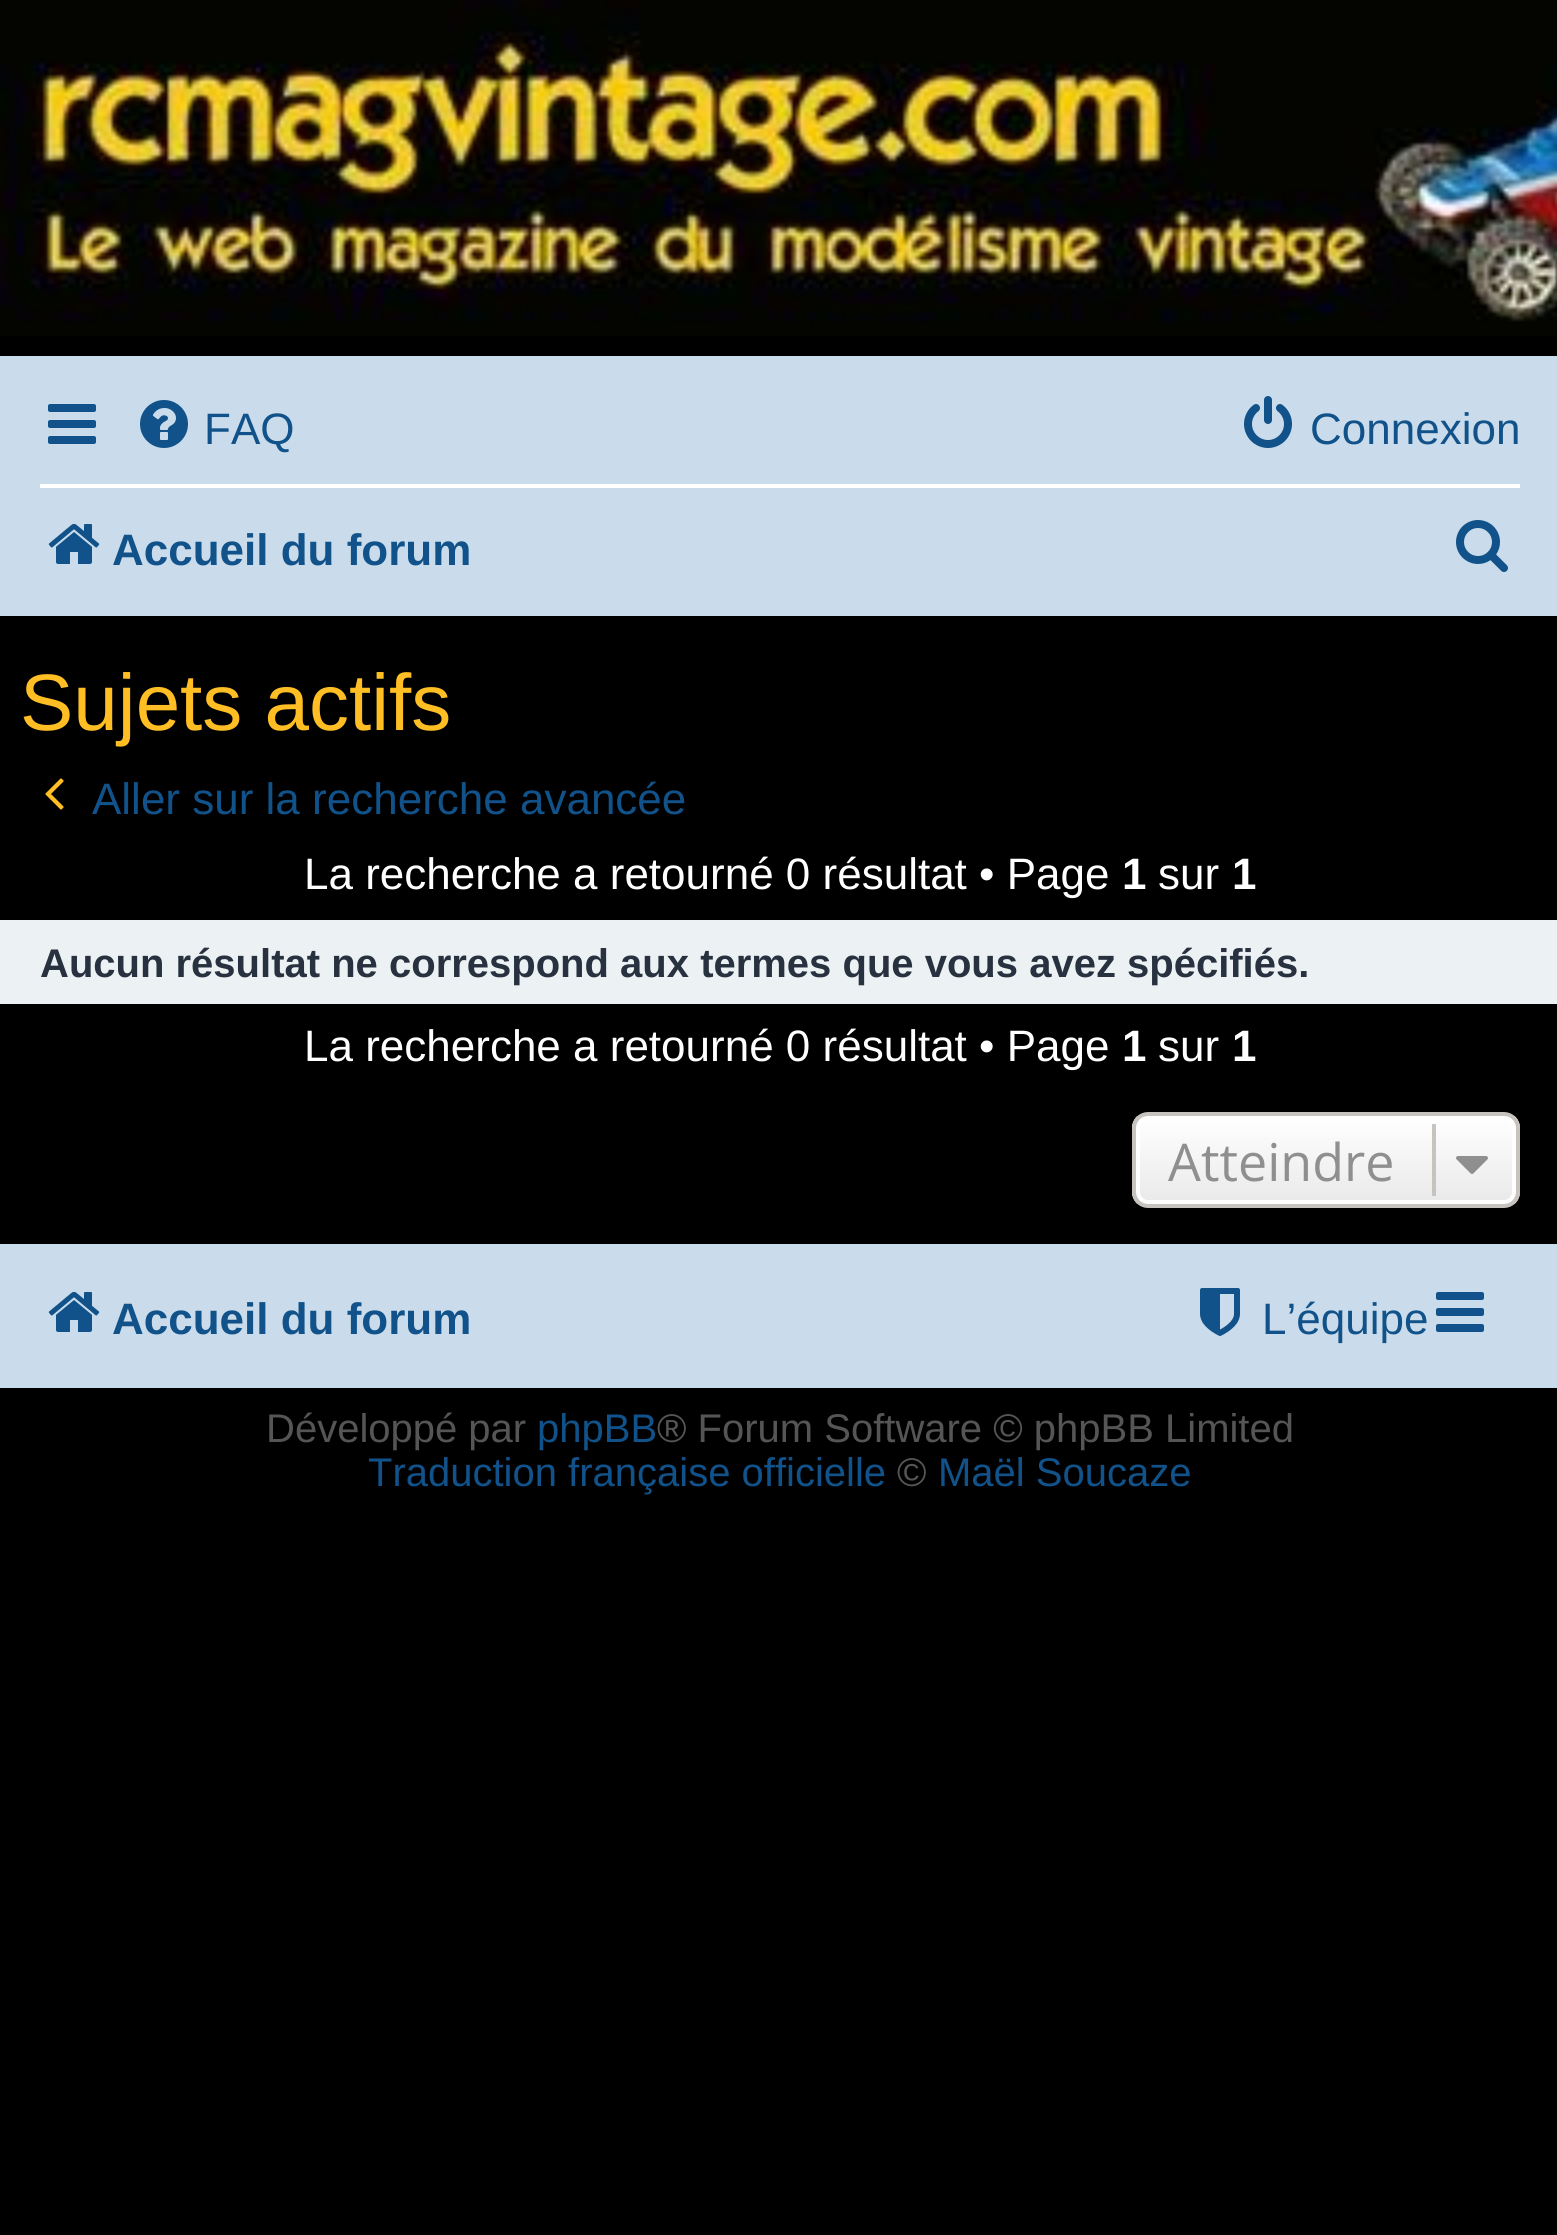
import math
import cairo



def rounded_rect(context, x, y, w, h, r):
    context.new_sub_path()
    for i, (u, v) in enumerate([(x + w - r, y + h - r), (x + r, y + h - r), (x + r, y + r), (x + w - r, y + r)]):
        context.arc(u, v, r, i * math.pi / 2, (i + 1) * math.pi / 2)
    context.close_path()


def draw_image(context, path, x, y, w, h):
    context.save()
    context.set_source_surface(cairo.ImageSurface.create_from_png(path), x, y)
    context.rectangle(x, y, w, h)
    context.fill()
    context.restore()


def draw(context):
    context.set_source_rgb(0, 0, 0)
    context.paint()
    draw_image(context, "images/1.png", 0, 0, 1557, 336)
    context.set_source_rgb(202 / 255, 220 / 255, 235 / 255)
    context.rectangle(0, 356, 1557, 260)
    context.fill()
    draw_image(context, "images/2.png", 48, 404, 48, 40)
    draw_image(context, "images/3.png", 140, 400, 48, 48)
    draw_image(context, "images/4.png", 1244, 396, 48, 52)
    context.set_source_rgb(1, 1, 1)
    context.rectangle(40, 484, 1480, 4)
    context.fill()
    draw_image(context, "images/5.png", 48, 523, 52, 41)
    draw_image(context, "images/6.png", 1456, 520, 52, 52)
    draw_image(context, "images/7.png", 45, 778, 19, 32)
    context.set_source_rgb(236 / 255, 241 / 255, 243 / 255)
    context.rectangle(0, 920, 1557, 84)
    context.fill()
    context.save()
    rounded_rect(context, 1132, 1112, 388, 96, 16)
    context.clip()
    gradient = cairo.LinearGradient(1326, 1116, 1326, 1204)
    gradient.add_color_stop_rgba(0, 1, 1, 1, 1)
    gradient.add_color_stop_rgba(1, 233 / 255, 233 / 255, 233 / 255, 1)
    context.set_source(gradient)
    context.rectangle(1132, 1116, 388, 88)
    context.fill()
    context.restore()
    rounded_rect(context, 1138, 1118, 376, 84, 10)
    context.set_source_rgb(1, 1, 1)
    context.set_line_width(4)
    context.stroke()
    rounded_rect(context, 1134, 1114, 384, 92, 14)
    context.set_source_rgb(199 / 255, 195 / 255, 191 / 255)
    context.stroke()
    context.rectangle(1432, 1124, 4, 72)
    context.fill()
    draw_image(context, "images/8.png", 1456, 1156, 32, 18)
    context.set_source_rgb(202 / 255, 220 / 255, 235 / 255)
    context.rectangle(0, 1244, 1557, 144)
    context.fill()
    draw_image(context, "images/5.png", 48, 1291, 52, 41)
    draw_image(context, "images/9.png", 1200, 1288, 40, 48)
    draw_image(context, "images/2.png", 1436, 1292, 48, 40)
    context.select_font_face("Liberation Sans")
    context.set_font_size(44)
    context.set_source_rgb(16 / 255, 82 / 255, 137 / 255)
    context.move_to(204, 444)
    context.show_text("FAQ")
    context.move_to(1310, 444)
    context.show_text("Connexion")
    context.select_font_face("Liberation Sans", cairo.FontSlant.NORMAL, cairo.FontWeight.BOLD)
    context.move_to(112, 565)
    context.show_text("Accueil du forum")
    context.select_font_face("Liberation Sans")
    context.set_font_size(80)
    context.set_source_rgb(254 / 255, 190 / 255, 36 / 255)
    context.move_to(20, 730)
    context.show_text("Sujets actifs")
    context.set_font_size(44)
    context.set_source_rgb(16 / 255, 82 / 255, 137 / 255)
    context.move_to(92, 814)
    context.show_text("Aller sur la recherche avancée")
    context.set_source_rgb(1, 1, 1)
    context.move_to(304, 889)
    context.show_text("La recherche a retourné 0 résultat • Page")
    context.select_font_face("Liberation Sans", cairo.FontSlant.NORMAL, cairo.FontWeight.BOLD)
    context.move_to(1122, 889)
    context.show_text("1")
    context.select_font_face("Liberation Sans")
    context.move_to(1158, 889)
    context.show_text("sur")
    context.select_font_face("Liberation Sans", cairo.FontSlant.NORMAL, cairo.FontWeight.BOLD)
    context.move_to(1232, 889)
    context.show_text("1")
    context.set_font_size(40)
    context.set_source_rgb(40 / 255, 49 / 255, 63 / 255)
    context.move_to(40, 977)
    context.show_text("Aucun résultat ne correspond aux termes que vous avez spécifiés.")
    context.select_font_face("Liberation Sans")
    context.set_font_size(44)
    context.set_source_rgb(1, 1, 1)
    context.move_to(304, 1061)
    context.show_text("La recherche a retourné 0 résultat • Page")
    context.select_font_face("Liberation Sans", cairo.FontSlant.NORMAL, cairo.FontWeight.BOLD)
    context.move_to(1122, 1061)
    context.show_text("1")
    context.select_font_face("Liberation Sans")
    context.move_to(1158, 1061)
    context.show_text("sur")
    context.select_font_face("Liberation Sans", cairo.FontSlant.NORMAL, cairo.FontWeight.BOLD)
    context.move_to(1232, 1061)
    context.show_text("1")
    context.select_font_face("Open Sans")
    context.set_font_size(52)
    context.set_source_rgb(143 / 255, 143 / 255, 143 / 255)
    context.move_to(1168, 1181)
    context.show_text("Atteindre")
    context.select_font_face("Liberation Sans", cairo.FontSlant.NORMAL, cairo.FontWeight.BOLD)
    context.set_font_size(44)
    context.set_source_rgb(16 / 255, 82 / 255, 137 / 255)
    context.move_to(112, 1334)
    context.show_text("Accueil du forum")
    context.select_font_face("Liberation Sans")
    context.move_to(1262, 1334)
    context.show_text("L’équipe")
    context.set_font_size(40)
    context.set_source_rgb(85 / 255, 85 / 255, 85 / 255)
    context.move_to(266, 1442)
    context.show_text("Développé par")
    context.set_source_rgb(16 / 255, 82 / 255, 137 / 255)
    context.move_to(537, 1442)
    context.show_text("phpBB")
    context.set_source_rgb(85 / 255, 85 / 255, 85 / 255)
    context.move_to(657, 1442)
    context.show_text("® Forum Software © phpBB Limited")
    context.set_source_rgb(16 / 255, 82 / 255, 137 / 255)
    context.move_to(368, 1486)
    context.show_text("Traduction française officielle")
    context.set_source_rgb(85 / 255, 85 / 255, 85 / 255)
    context.move_to(897, 1486)
    context.show_text("©")
    context.set_source_rgb(16 / 255, 82 / 255, 137 / 255)
    context.move_to(938, 1486)
    context.show_text("Maël Soucaze")


surface = cairo.ImageSurface(cairo.Format.RGB24, 1557, 2235)
context = cairo.Context(surface)
options = cairo.FontOptions()
options.set_hint_metrics(cairo.HintMetrics.OFF)
options.set_hint_style(cairo.HintStyle.NONE)
context.set_font_options(options)
context.set_miter_limit(4)
draw(context)
surface.write_to_png("out.png")
